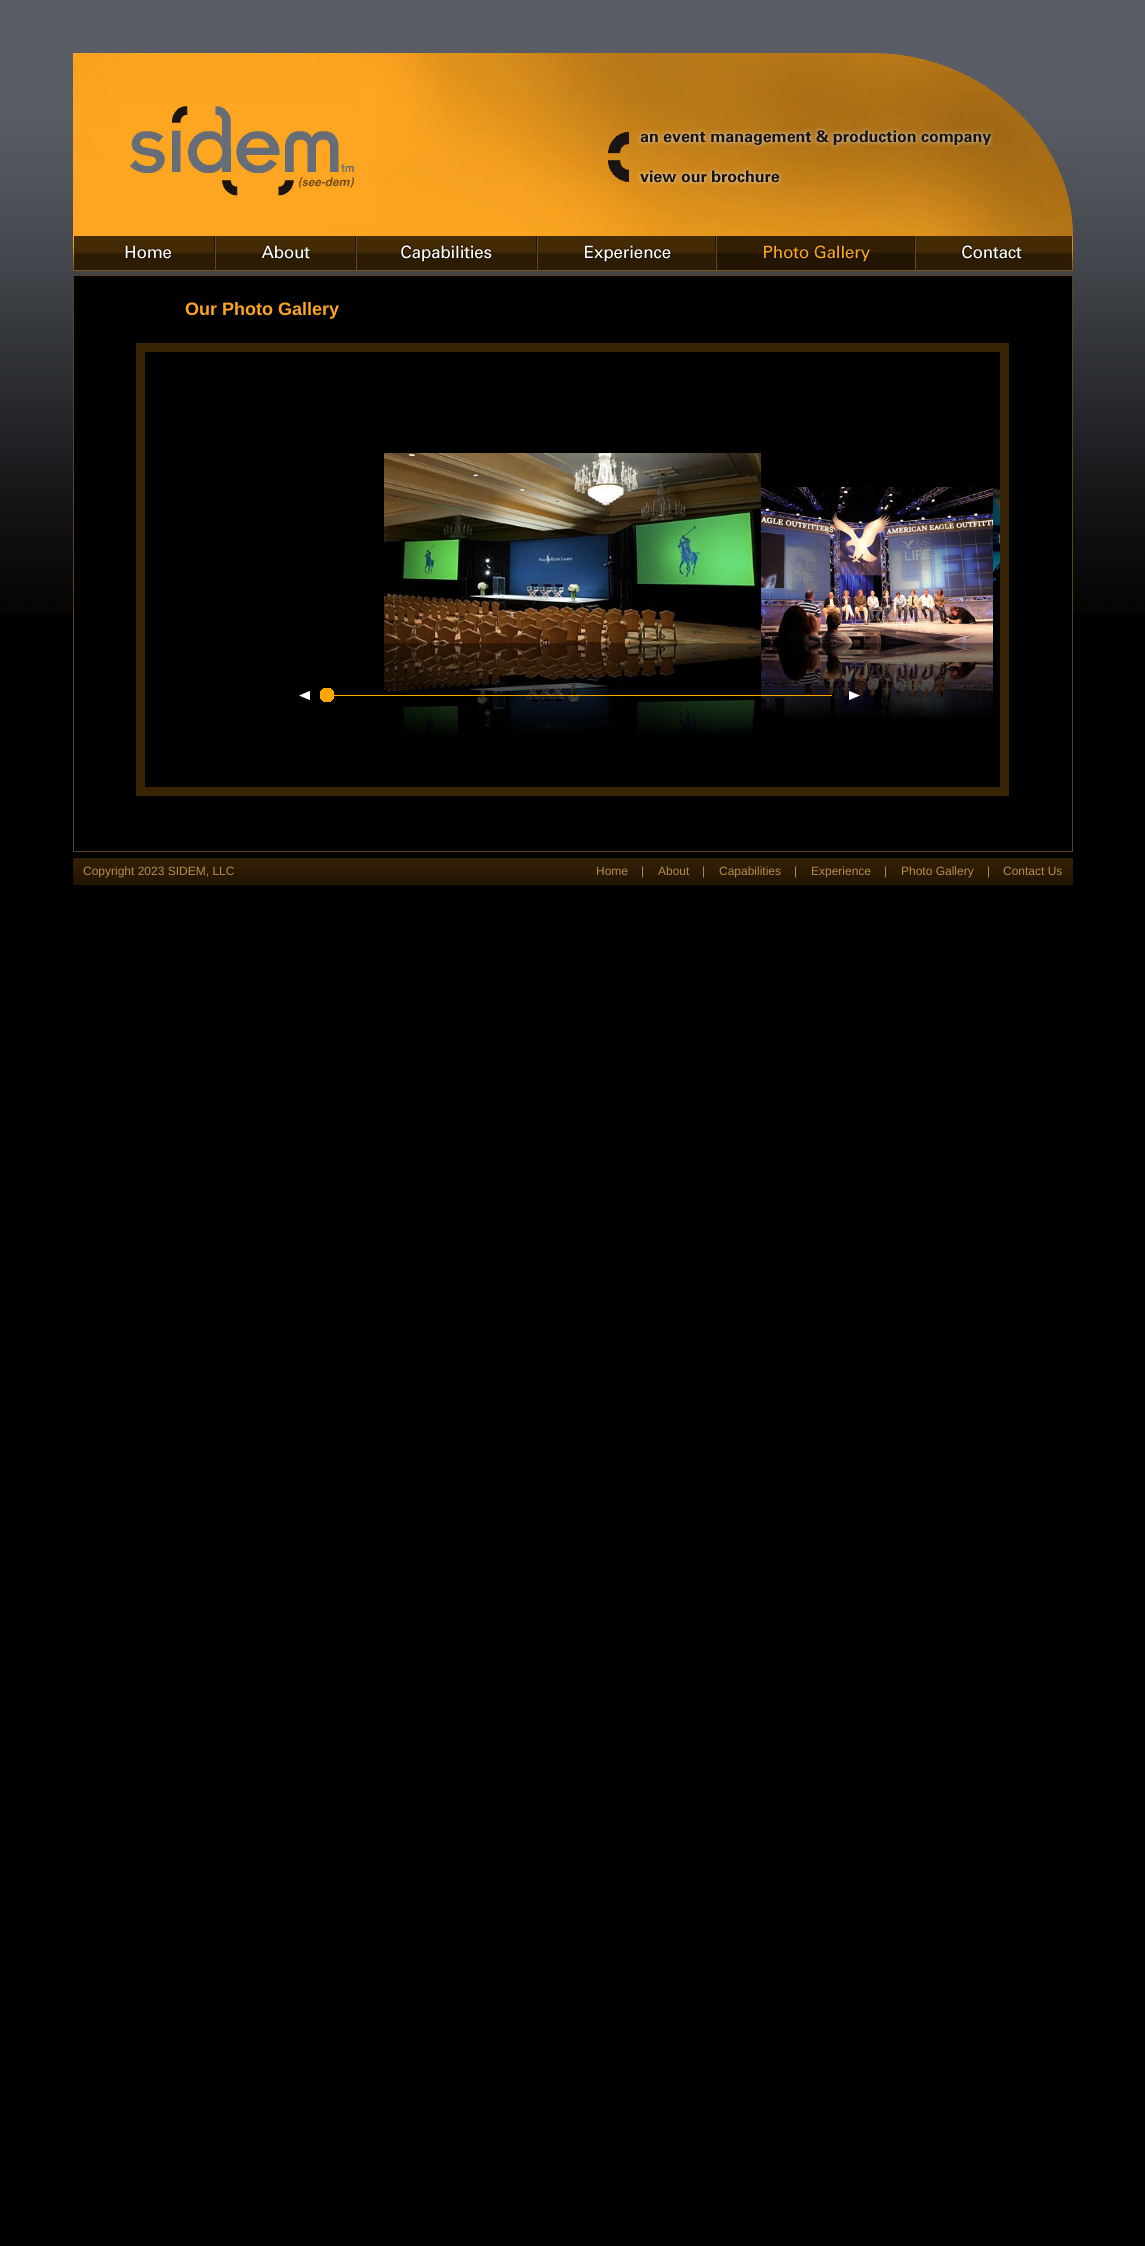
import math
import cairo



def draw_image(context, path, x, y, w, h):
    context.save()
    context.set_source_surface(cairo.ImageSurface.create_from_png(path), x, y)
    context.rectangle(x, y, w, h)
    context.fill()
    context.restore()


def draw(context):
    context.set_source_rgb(0, 0, 0)
    context.paint()
    draw_image(context, "images/1.png", 0, 0, 1145, 614)
    draw_image(context, "images/2.png", 73, 48, 1000, 188)
    draw_image(context, "images/3.png", 123, 104, 232, 96)
    draw_image(context, "images/4.png", 608, 127, 386, 59)
    draw_image(context, "images/5.png", 73, 236, 141, 35)
    draw_image(context, "images/6.png", 214, 236, 141, 35)
    draw_image(context, "images/7.png", 355, 236, 181, 35)
    draw_image(context, "images/8.png", 536, 236, 179, 35)
    draw_image(context, "images/9.png", 715, 236, 199, 35)
    draw_image(context, "images/10.png", 914, 236, 159, 35)
    context.set_source_rgb(0, 0, 0)
    context.rectangle(74, 276, 998, 338)
    context.fill()
    context.rectangle(73.5, 275.5, 999, 576)
    context.set_source_rgb(92 / 255, 67 / 255, 32 / 255)
    context.set_line_width(1)
    context.stroke()
    context.rectangle(140.5, 347.5, 864, 444)
    context.set_source_rgb(57 / 255, 35 / 255, 5 / 255)
    context.set_line_width(9)
    context.stroke()
    draw_image(context, "images/11.png", 384, 453, 377, 282)
    draw_image(context, "images/12.png", 761, 487, 232, 232)
    draw_image(context, "images/13.png", 993, 489, 7, 228)
    context.set_source_rgb(1, 167 / 255, 0)
    context.rectangle(327, 695, 505, 1)
    context.fill()
    draw_image(context, "images/14.png", 299, 690, 11, 11)
    draw_image(context, "images/15.png", 320, 688, 14, 14)
    draw_image(context, "images/16.png", 849, 690, 11, 11)
    draw_image(context, "images/17.png", 73, 858, 1000, 27)
    context.select_font_face("Liberation Sans", cairo.FontSlant.NORMAL, cairo.FontWeight.BOLD)
    context.set_font_size(18)
    context.set_source_rgb(252 / 255, 165 / 255, 33 / 255)
    context.move_to(185, 315)
    context.show_text("Our Photo Gallery")
    context.select_font_face("Liberation Sans")
    context.set_font_size(12)
    context.set_source_rgb(181 / 255, 140 / 255, 77 / 255)
    context.move_to(83, 875)
    context.show_text("Copyright 2023 SIDEM, LLC")
    context.move_to(596, 875)
    context.show_text("Home")
    context.move_to(641, 875)
    context.show_text("|")
    context.move_to(658, 875)
    context.show_text("About")
    context.move_to(702, 875)
    context.show_text("|")
    context.move_to(719, 875)
    context.show_text("Capabilities")
    context.move_to(794, 875)
    context.show_text("|")
    context.move_to(811, 875)
    context.show_text("Experience")
    context.move_to(884, 875)
    context.show_text("|")
    context.move_to(901, 875)
    context.show_text("Photo Gallery")
    context.move_to(987, 875)
    context.show_text("|")
    context.move_to(1003, 875)
    context.show_text("Contact Us")


surface = cairo.ImageSurface(cairo.Format.RGB24, 1145, 2246)
context = cairo.Context(surface)
options = cairo.FontOptions()
options.set_hint_metrics(cairo.HintMetrics.OFF)
options.set_hint_style(cairo.HintStyle.NONE)
context.set_font_options(options)
context.set_miter_limit(4)
draw(context)
surface.write_to_png("out.png")
